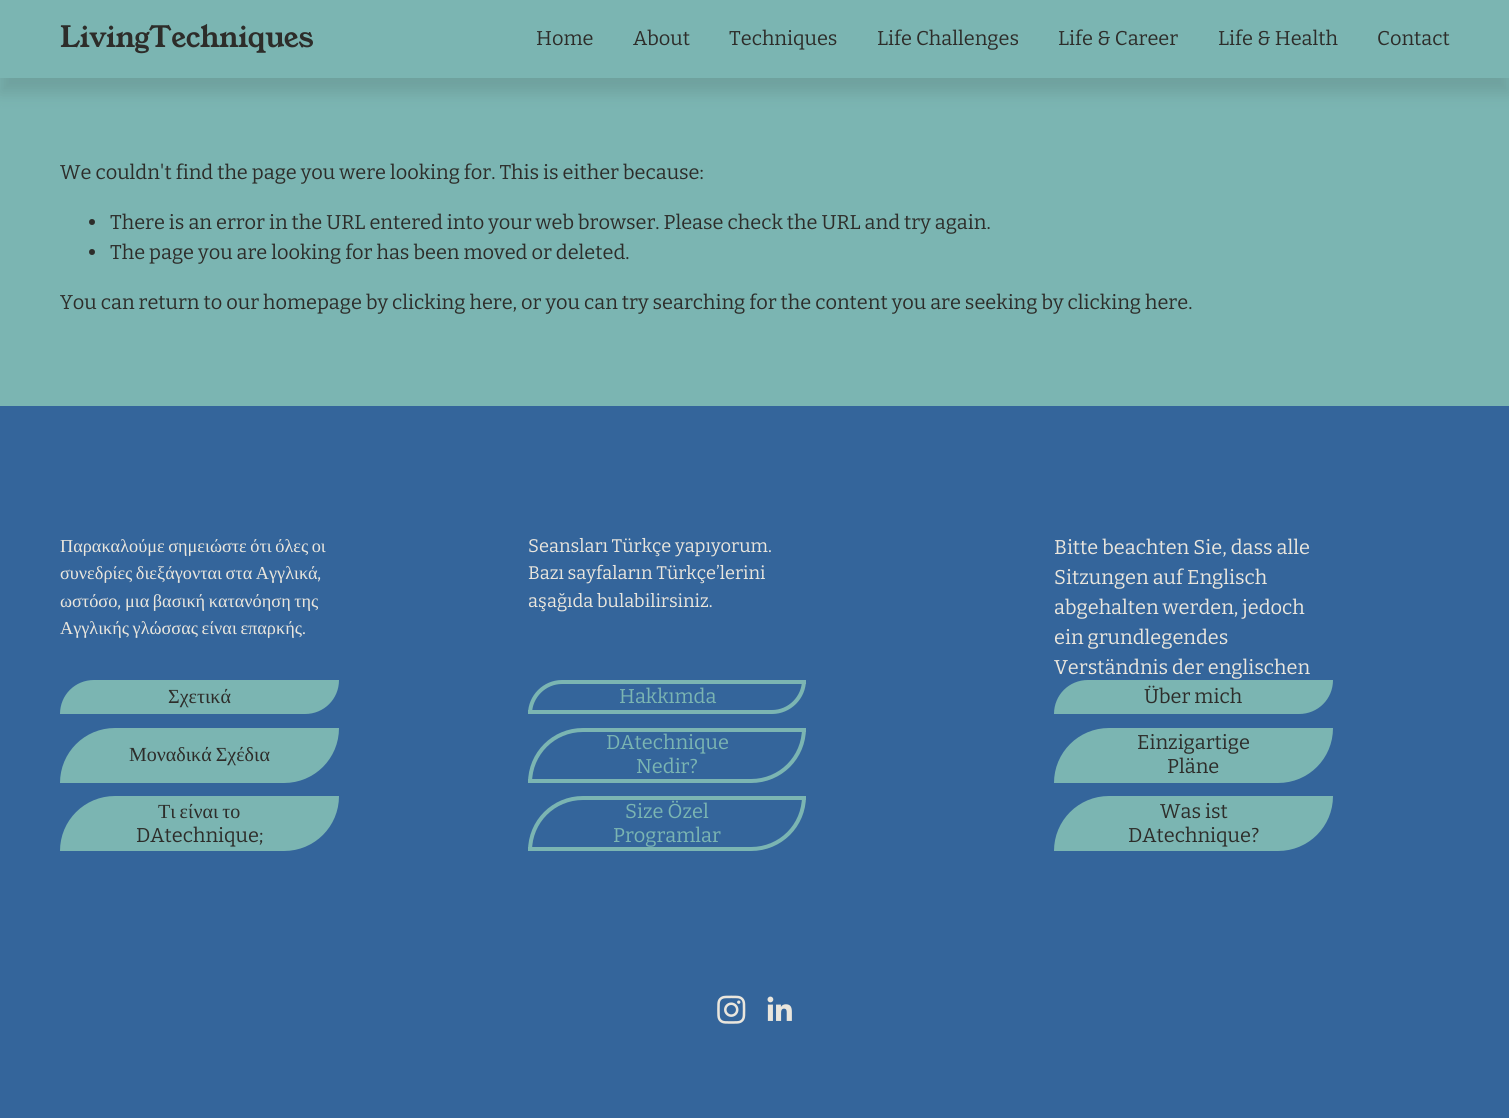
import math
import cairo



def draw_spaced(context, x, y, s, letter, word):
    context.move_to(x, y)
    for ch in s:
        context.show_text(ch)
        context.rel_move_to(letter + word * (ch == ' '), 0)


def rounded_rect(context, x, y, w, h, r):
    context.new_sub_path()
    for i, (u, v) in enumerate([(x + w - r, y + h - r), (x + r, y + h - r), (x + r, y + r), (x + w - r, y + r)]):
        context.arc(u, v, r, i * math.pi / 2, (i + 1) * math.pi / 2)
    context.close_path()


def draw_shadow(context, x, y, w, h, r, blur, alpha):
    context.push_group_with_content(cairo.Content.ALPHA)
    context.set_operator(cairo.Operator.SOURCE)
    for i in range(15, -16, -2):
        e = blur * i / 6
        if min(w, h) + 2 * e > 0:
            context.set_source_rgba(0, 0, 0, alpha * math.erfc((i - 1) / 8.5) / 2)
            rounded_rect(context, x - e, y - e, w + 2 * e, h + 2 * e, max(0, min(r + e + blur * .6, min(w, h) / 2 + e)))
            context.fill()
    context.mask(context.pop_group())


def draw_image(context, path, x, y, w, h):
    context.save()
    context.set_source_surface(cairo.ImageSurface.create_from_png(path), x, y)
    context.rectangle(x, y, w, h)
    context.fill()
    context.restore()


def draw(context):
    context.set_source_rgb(123 / 255, 181 / 255, 178 / 255)
    context.paint()
    context.save()
    context.set_fill_rule(cairo.FillRule.EVEN_ODD)
    context.new_path()
    context.move_to(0, 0)
    context.line_to(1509, 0)
    context.line_to(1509, 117)
    context.line_to(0, 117)
    context.close_path()
    context.move_to(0, 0)
    context.line_to(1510, 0)
    context.line_to(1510, 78)
    context.line_to(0, 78)
    context.close_path()
    context.clip()
    context.set_source_rgb(111 / 255, 161 / 255, 158 / 255)
    draw_shadow(context, 0, 15, 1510, 78, 0, 7.5, 1)
    context.restore()
    context.set_source_rgb(45 / 255, 45 / 255, 42 / 255)
    context.arc(92, 222, 3, 0, 2 * math.pi)
    context.fill()
    context.arc(92, 252, 3, 0, 2 * math.pi)
    context.fill()
    context.set_source_rgb(52 / 255, 101 / 255, 155 / 255)
    context.rectangle(0, 406, 1509, 712)
    context.fill()
    context.set_source_rgb(123 / 255, 181 / 255, 178 / 255)
    context.new_path()
    context.move_to(94, 680)
    context.line_to(339, 680)
    context.curve_to(339, 699, 324, 714, 305, 714)
    context.line_to(60, 714)
    context.curve_to(60, 695, 75, 680, 94, 680)
    context.close_path()
    context.fill()
    context.new_path()
    context.move_to(562, 682)
    context.line_to(804, 682)
    context.line_to(804, 680)
    context.curve_to(804, 697.5, 789.5, 712, 772, 712)
    context.line_to(530, 712)
    context.line_to(530, 714)
    context.curve_to(530, 696.5, 544.5, 682, 562, 682)
    context.close_path()
    context.set_line_width(4)
    context.stroke()
    context.new_path()
    context.move_to(1088, 680)
    context.line_to(1333, 680)
    context.curve_to(1333, 699, 1318, 714, 1299, 714)
    context.line_to(1054, 714)
    context.curve_to(1054, 695, 1069, 680, 1088, 680)
    context.close_path()
    context.fill()
    context.new_path()
    context.move_to(115, 728)
    context.line_to(339, 728)
    context.curve_to(339, 758.5, 314.5, 783, 284, 783)
    context.line_to(60, 783)
    context.curve_to(60, 752.5, 84.5, 728, 115, 728)
    context.close_path()
    context.fill()
    context.new_path()
    context.move_to(583, 730)
    context.line_to(804, 730)
    context.line_to(804, 728)
    context.curve_to(804, 757.5, 780.5, 781, 751, 781)
    context.line_to(530, 781)
    context.line_to(530, 783)
    context.curve_to(530, 753.5, 553.5, 730, 583, 730)
    context.close_path()
    context.stroke()
    context.new_path()
    context.move_to(1109, 728)
    context.line_to(1333, 728)
    context.curve_to(1333, 758.5, 1308.5, 783, 1278, 783)
    context.line_to(1054, 783)
    context.curve_to(1054, 752.5, 1078.5, 728, 1109, 728)
    context.close_path()
    context.fill()
    context.new_path()
    context.move_to(115, 796)
    context.line_to(339, 796)
    context.curve_to(339, 826.5, 314.5, 851, 284, 851)
    context.line_to(60, 851)
    context.curve_to(60, 820.5, 84.5, 796, 115, 796)
    context.close_path()
    context.fill()
    context.new_path()
    context.move_to(583, 798)
    context.line_to(804, 798)
    context.line_to(804, 796)
    context.curve_to(804, 825.5, 780.5, 849, 751, 849)
    context.line_to(530, 849)
    context.line_to(530, 851)
    context.curve_to(530, 821.5, 553.5, 798, 583, 798)
    context.close_path()
    context.stroke()
    context.new_path()
    context.move_to(1109, 796)
    context.line_to(1333, 796)
    context.curve_to(1333, 826.5, 1308.5, 851, 1278, 851)
    context.line_to(1054, 851)
    context.curve_to(1054, 820.5, 1078.5, 796, 1109, 796)
    context.close_path()
    context.fill()
    draw_image(context, "images/1.png", 717, 995, 29, 29)
    draw_image(context, "images/2.png", 767, 996, 25, 25)
    context.select_font_face("Young Serif")
    context.set_font_size(29)
    context.set_source_rgb(45 / 255, 45 / 255, 42 / 255)
    draw_spaced(context, 60, 47, "LivingTechniques", -0.6, 0)
    context.select_font_face("Bitter")
    context.set_font_size(20)
    context.move_to(536, 45)
    context.show_text("Home")
    context.move_to(633, 45)
    context.show_text("About")
    context.move_to(729, 45)
    context.show_text("Techniques")
    context.move_to(877, 45)
    context.show_text("Life Challenges")
    context.move_to(1058, 45)
    context.show_text("Life & Career")
    context.move_to(1218, 45)
    context.show_text("Life & Health")
    context.move_to(1377, 45)
    context.show_text("Contact")
    context.move_to(60, 179)
    context.show_text("We couldn't find the page you were looking for. This is either because:")
    context.move_to(110, 229)
    context.show_text("There is an error in the URL entered into your web browser. Please check the URL and try again.")
    context.move_to(110, 259)
    context.show_text("The page you are looking for has been moved or deleted.")
    context.move_to(60, 309)
    context.show_text("You can return to our homepage by clicking here, or you can try searching for the content you are seeking by clicking here.")
    context.select_font_face("Liberation Serif")
    context.set_font_size(18.25)
    context.set_source_rgb(234 / 255, 230 / 255, 221 / 255)
    draw_spaced(context, 60, 552, "Παρακαλούμε σημειώστε ότι όλες οι", 0, -1)
    draw_spaced(context, 60, 579, "συνεδρίες διεξάγονται στα Αγγλικά", 0, -1)
    context.select_font_face("Bitter")
    context.move_to(317, 579)
    context.show_text(",")
    context.select_font_face("Liberation Serif")
    context.move_to(60, 607)
    context.show_text("ωστόσο")
    context.select_font_face("Bitter")
    context.move_to(117, 607)
    context.show_text(",")
    context.select_font_face("Liberation Serif")
    draw_spaced(context, 125, 607, "μια βασική κατανόηση της", 0, -1)
    draw_spaced(context, 60, 634, "Αγγλικής γλώσσας είναι επαρκής", 0, -1)
    context.select_font_face("Bitter")
    context.move_to(302, 634)
    context.show_text(".")
    context.move_to(528, 552)
    context.show_text("Seansları Türkçe yapıyorum.")
    context.move_to(528, 579)
    context.show_text("Bazı sayfaların Türkçe’lerini")
    context.move_to(528, 607)
    context.show_text("aşağıda bulabilirsiniz.")
    context.set_font_size(20)
    context.move_to(1054, 554)
    context.show_text("Bitte beachten Sie, dass alle")
    context.move_to(1054, 584)
    context.show_text("Sitzungen auf Englisch")
    context.move_to(1054, 614)
    context.show_text("abgehalten werden, jedoch")
    context.move_to(1054, 644)
    context.show_text("ein grundlegendes")
    context.move_to(1054, 674)
    context.show_text("Verständnis der englischen")
    context.select_font_face("Liberation Serif")
    context.set_source_rgb(45 / 255, 45 / 255, 42 / 255)
    context.move_to(168, 703)
    context.show_text("Σχετικά")
    context.select_font_face("Bitter")
    context.set_source_rgb(123 / 255, 181 / 255, 178 / 255)
    context.move_to(619, 703)
    context.show_text("Hakkımda")
    context.set_source_rgb(45 / 255, 45 / 255, 42 / 255)
    context.move_to(1144, 703)
    context.show_text("Über mich")
    context.select_font_face("Liberation Serif")
    draw_spaced(context, 129, 761, "Μοναδικά Σχέδια", 0, -1)
    context.select_font_face("Bitter")
    context.set_source_rgb(123 / 255, 181 / 255, 178 / 255)
    context.move_to(606, 749)
    context.show_text("DAtechnique")
    context.move_to(636, 773)
    context.show_text("Nedir?")
    context.set_source_rgb(45 / 255, 45 / 255, 42 / 255)
    context.move_to(1137, 749)
    context.show_text("Einzigartige")
    context.move_to(1167, 773)
    context.show_text("Pläne")
    context.select_font_face("Liberation Serif")
    draw_spaced(context, 158, 818, "Τι είναι το", 0, -1)
    context.select_font_face("Bitter")
    context.move_to(136, 842)
    context.show_text("DAtechnique;")
    context.set_source_rgb(123 / 255, 181 / 255, 178 / 255)
    context.move_to(625, 818)
    context.show_text("Size Özel")
    context.move_to(613, 842)
    context.show_text("Programlar")
    context.set_source_rgb(45 / 255, 45 / 255, 42 / 255)
    context.move_to(1160, 818)
    context.show_text("Was ist")
    context.move_to(1128, 842)
    context.show_text("DAtechnique?")


surface = cairo.ImageSurface(cairo.Format.RGB24, 1509, 1118)
context = cairo.Context(surface)
options = cairo.FontOptions()
options.set_hint_metrics(cairo.HintMetrics.OFF)
options.set_hint_style(cairo.HintStyle.NONE)
context.set_font_options(options)
context.set_miter_limit(4)
draw(context)
surface.write_to_png("out.png")
